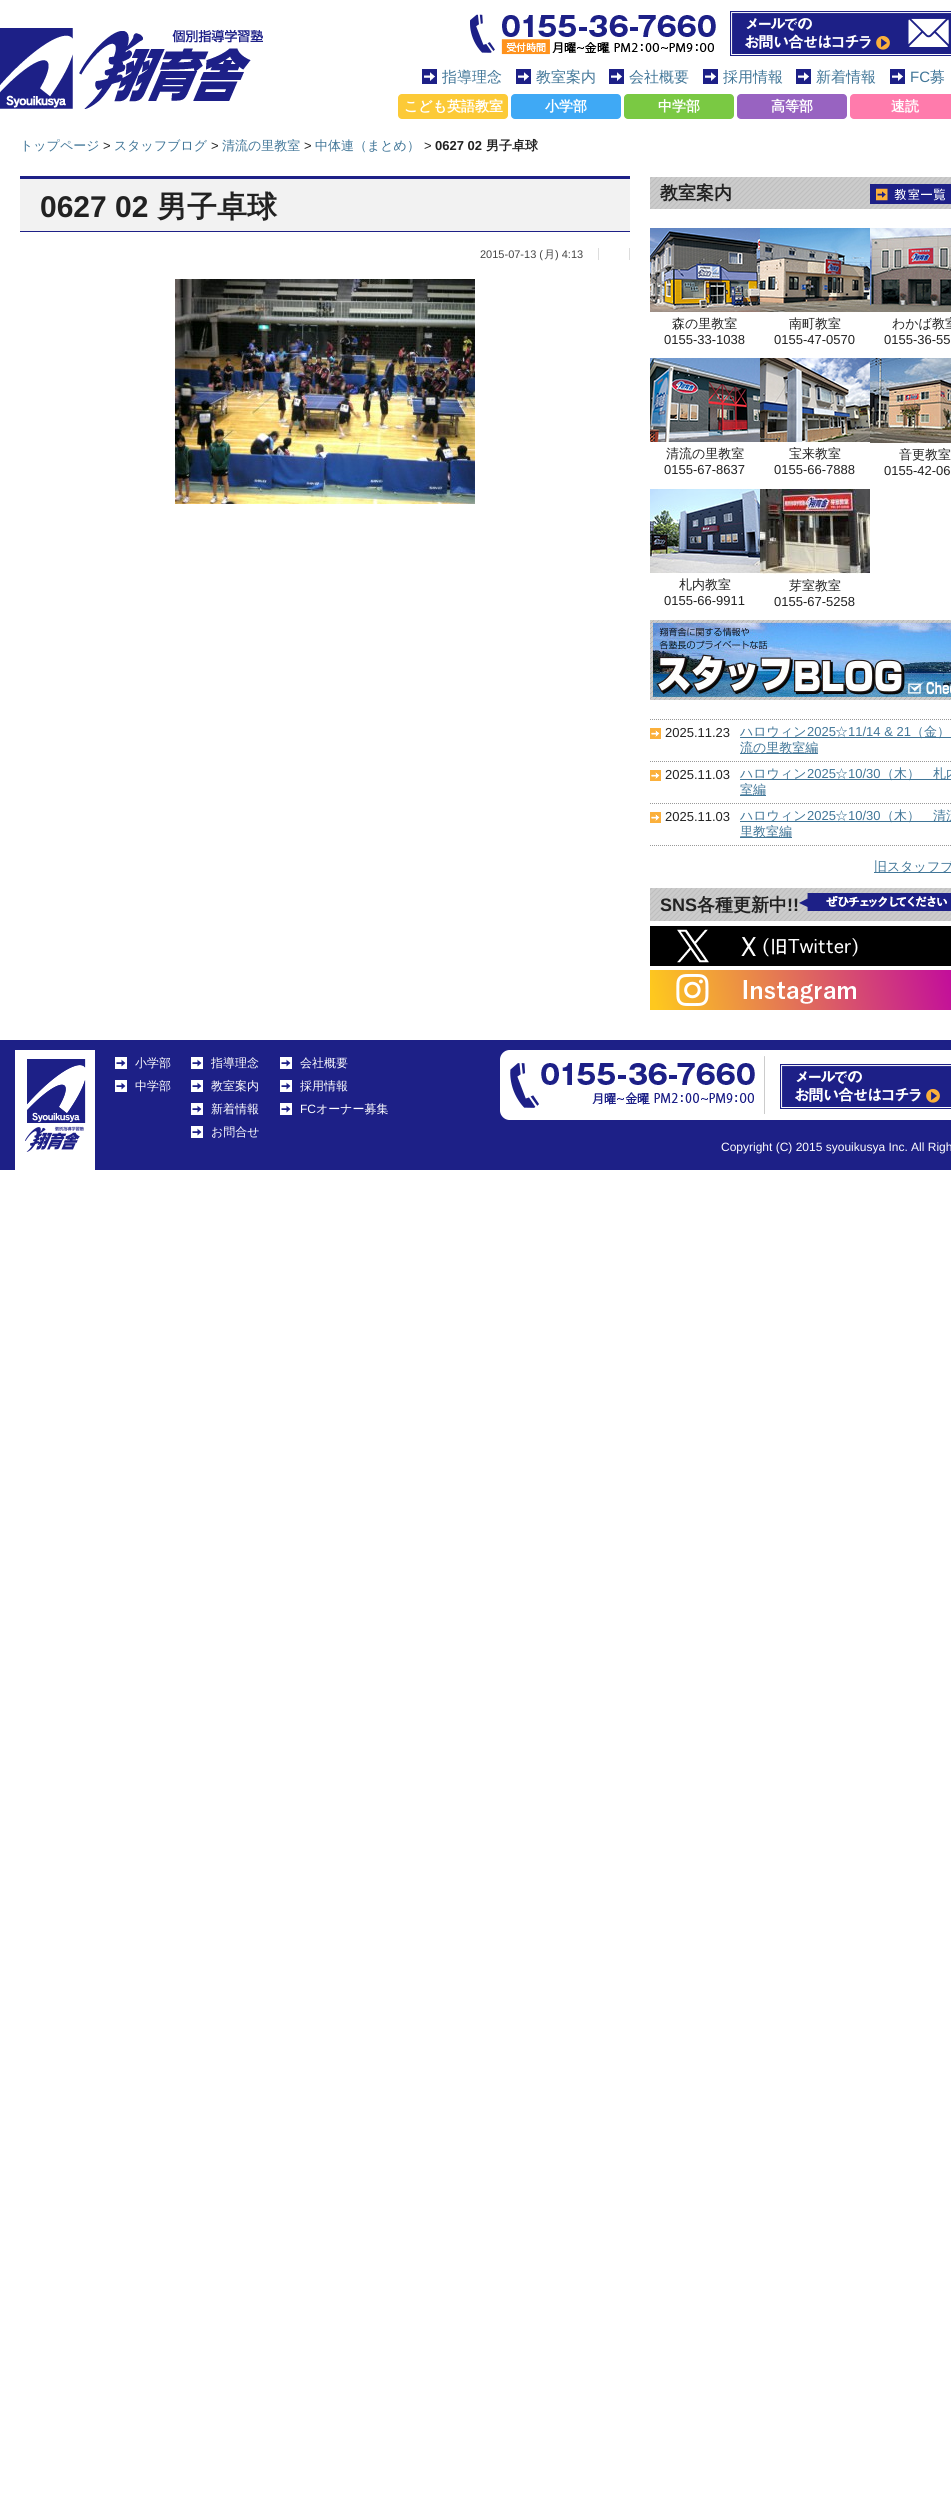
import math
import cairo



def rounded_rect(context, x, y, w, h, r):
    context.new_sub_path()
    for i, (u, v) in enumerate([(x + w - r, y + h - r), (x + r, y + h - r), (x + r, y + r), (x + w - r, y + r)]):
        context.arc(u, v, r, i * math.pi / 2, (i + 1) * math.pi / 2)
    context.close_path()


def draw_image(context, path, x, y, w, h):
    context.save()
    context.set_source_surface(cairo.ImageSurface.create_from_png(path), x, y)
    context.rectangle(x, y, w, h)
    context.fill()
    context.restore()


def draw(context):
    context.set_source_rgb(1, 1, 1)
    context.paint()
    draw_image(context, "images/1.png", 0, 28, 263, 81)
    draw_image(context, "images/2.png", 470, 14, 246, 41)
    draw_image(context, "images/3.png", 730, 11, 221, 45)
    draw_image(context, "images/4.png", 422, 69, 15, 15)
    draw_image(context, "images/4.png", 516, 69, 15, 15)
    draw_image(context, "images/4.png", 609, 69, 15, 15)
    draw_image(context, "images/4.png", 703, 69, 15, 15)
    draw_image(context, "images/4.png", 796, 69, 15, 15)
    draw_image(context, "images/4.png", 890, 69, 15, 15)
    context.set_source_rgb(252 / 255, 202 / 255, 55 / 255)
    rounded_rect(context, 398, 94, 110, 25, 4)
    context.fill()
    context.set_source_rgb(63 / 255, 169 / 255, 245 / 255)
    rounded_rect(context, 511, 94, 110, 25, 4)
    context.fill()
    context.set_source_rgb(122 / 255, 201 / 255, 67 / 255)
    rounded_rect(context, 624, 94, 110, 25, 4)
    context.fill()
    context.set_source_rgb(152 / 255, 99 / 255, 193 / 255)
    rounded_rect(context, 737, 94, 110, 25, 4)
    context.fill()
    context.set_source_rgb(1, 123 / 255, 172 / 255)
    rounded_rect(context, 850, 94, 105, 25, 4)
    context.fill()
    context.set_source_rgb(242 / 255, 242 / 255, 242 / 255)
    context.rectangle(20, 179, 610, 52)
    context.fill()
    context.set_source_rgb(29 / 255, 32 / 255, 135 / 255)
    context.rectangle(20, 176, 610, 3)
    context.fill()
    context.rectangle(20, 231, 610, 1)
    context.fill()
    context.set_source_rgb(221 / 255, 221 / 255, 221 / 255)
    context.rectangle(598, 248, 1, 12)
    context.fill()
    context.rectangle(629, 248, 1, 12)
    context.fill()
    draw_image(context, "images/5.png", 175, 279, 300, 225)
    draw_image(context, "images/6.png", 650, 177, 301, 32)
    draw_image(context, "images/7.png", 870, 184, 81, 20)
    draw_image(context, "images/8.png", 650, 228, 110, 84)
    draw_image(context, "images/9.png", 760, 228, 110, 84)
    draw_image(context, "images/10.png", 870, 228, 81, 84)
    draw_image(context, "images/11.png", 650, 358, 110, 84)
    draw_image(context, "images/12.png", 760, 358, 110, 84)
    draw_image(context, "images/13.png", 870, 358, 81, 85)
    draw_image(context, "images/14.png", 650, 489, 110, 84)
    draw_image(context, "images/15.png", 760, 489, 110, 85)
    draw_image(context, "images/16.png", 650, 620, 301, 80)
    context.new_path()
    context.move_to(650, 719.5)
    context.line_to(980, 719.5)
    context.set_source_rgb(153 / 255, 153 / 255, 153 / 255)
    context.set_line_width(1)
    context.set_dash([1, 1])
    context.stroke()
    draw_image(context, "images/17.png", 650, 728, 11, 11)
    context.new_path()
    context.move_to(650, 761.5)
    context.line_to(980, 761.5)
    context.stroke()
    context.set_source_rgb(65 / 255, 118 / 255, 152 / 255)
    context.rectangle(740, 737, 211, 1)
    context.fill()
    context.rectangle(740, 753, 78, 1)
    context.fill()
    draw_image(context, "images/17.png", 650, 770, 11, 11)
    context.new_path()
    context.move_to(650, 803.5)
    context.line_to(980, 803.5)
    context.set_source_rgb(153 / 255, 153 / 255, 153 / 255)
    context.stroke()
    context.set_source_rgb(65 / 255, 118 / 255, 152 / 255)
    context.rectangle(740, 779, 211, 1)
    context.fill()
    context.rectangle(740, 795, 26, 1)
    context.fill()
    draw_image(context, "images/17.png", 650, 812, 11, 11)
    context.new_path()
    context.move_to(650, 845.5)
    context.line_to(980, 845.5)
    context.set_source_rgb(153 / 255, 153 / 255, 153 / 255)
    context.stroke()
    context.set_source_rgb(65 / 255, 118 / 255, 152 / 255)
    context.rectangle(740, 821, 211, 1)
    context.fill()
    context.rectangle(740, 837, 52, 1)
    context.fill()
    context.rectangle(874, 872, 77, 1)
    context.fill()
    draw_image(context, "images/18.png", 650, 888, 301, 33)
    draw_image(context, "images/19.png", 799, 893, 152, 18)
    draw_image(context, "images/20.png", 650, 926, 301, 40)
    draw_image(context, "images/21.png", 650, 970, 301, 40)
    context.set_source_rgb(29 / 255, 32 / 255, 135 / 255)
    context.rectangle(0, 1040, 951, 130)
    context.fill()
    draw_image(context, "images/22.png", 15, 1050, 80, 120)
    draw_image(context, "images/23.png", 115, 1057, 12, 12)
    draw_image(context, "images/23.png", 115, 1080, 12, 12)
    draw_image(context, "images/23.png", 191, 1057, 12, 12)
    draw_image(context, "images/23.png", 191, 1080, 12, 12)
    draw_image(context, "images/23.png", 191, 1103, 12, 12)
    draw_image(context, "images/23.png", 191, 1126, 12, 12)
    draw_image(context, "images/23.png", 280, 1057, 12, 12)
    draw_image(context, "images/23.png", 280, 1080, 12, 12)
    draw_image(context, "images/23.png", 280, 1103, 12, 12)
    draw_image(context, "images/24.png", 500, 1050, 451, 70)
    draw_image(context, "images/25.png", 780, 1064, 171, 45)
    context.select_font_face("WenQuanYi Zen Hei Medium")
    context.set_font_size(15)
    context.set_source_rgb(65 / 255, 118 / 255, 152 / 255)
    context.move_to(442, 82)
    context.show_text("指導理念")
    context.move_to(536, 82)
    context.show_text("教室案内")
    context.move_to(629, 82)
    context.show_text("会社概要")
    context.move_to(723, 82)
    context.show_text("採用情報")
    context.move_to(816, 82)
    context.show_text("新着情報")
    context.select_font_face("Liberation Sans")
    context.move_to(910, 82)
    context.show_text("FC")
    context.select_font_face("WenQuanYi Zen Hei Medium")
    context.move_to(930, 82)
    context.show_text("募")
    context.select_font_face("WenQuanYi Zen Hei", cairo.FontSlant.NORMAL, cairo.FontWeight.BOLD)
    context.set_font_size(14)
    context.set_source_rgb(1, 1, 1)
    context.move_to(404, 111)
    context.show_text("こども英語教室")
    context.move_to(545, 111)
    context.show_text("小学部")
    context.move_to(658, 111)
    context.show_text("中学部")
    context.move_to(771, 111)
    context.show_text("高等部")
    context.move_to(891, 111)
    context.show_text("速読")
    context.select_font_face("WenQuanYi Zen Hei Medium")
    context.set_font_size(13)
    context.set_source_rgb(65 / 255, 118 / 255, 152 / 255)
    context.move_to(20, 150)
    context.show_text("トップページ")
    context.select_font_face("Liberation Sans")
    context.set_source_rgb(34 / 255, 34 / 255, 34 / 255)
    context.move_to(103, 150)
    context.show_text(">")
    context.select_font_face("WenQuanYi Zen Hei Medium")
    context.set_source_rgb(65 / 255, 118 / 255, 152 / 255)
    context.move_to(114, 150)
    context.show_text("スタッフブログ")
    context.select_font_face("Liberation Sans")
    context.set_source_rgb(34 / 255, 34 / 255, 34 / 255)
    context.move_to(211, 150)
    context.show_text(">")
    context.select_font_face("WenQuanYi Zen Hei Medium")
    context.set_source_rgb(65 / 255, 118 / 255, 152 / 255)
    context.move_to(222, 150)
    context.show_text("清流の里教室")
    context.select_font_face("Liberation Sans")
    context.set_source_rgb(34 / 255, 34 / 255, 34 / 255)
    context.move_to(304, 150)
    context.show_text(">")
    context.select_font_face("WenQuanYi Zen Hei Medium")
    context.set_source_rgb(65 / 255, 118 / 255, 152 / 255)
    context.move_to(315, 150)
    context.show_text("中体連（まとめ）")
    context.select_font_face("Liberation Sans")
    context.set_source_rgb(34 / 255, 34 / 255, 34 / 255)
    context.move_to(424, 150)
    context.show_text(">")
    context.select_font_face("Liberation Sans", cairo.FontSlant.NORMAL, cairo.FontWeight.BOLD)
    context.move_to(435, 150)
    context.show_text("0627 02")
    context.select_font_face("WenQuanYi Zen Hei", cairo.FontSlant.NORMAL, cairo.FontWeight.BOLD)
    context.move_to(486, 150)
    context.show_text("男子卓球")
    context.select_font_face("Liberation Sans", cairo.FontSlant.NORMAL, cairo.FontWeight.BOLD)
    context.set_font_size(30)
    context.move_to(40, 217)
    context.show_text("0627 02")
    context.select_font_face("WenQuanYi Zen Hei", cairo.FontSlant.NORMAL, cairo.FontWeight.BOLD)
    context.move_to(157, 217)
    context.show_text("男子卓球")
    context.select_font_face("Liberation Sans")
    context.set_font_size(11)
    context.set_source_rgb(68 / 255, 68 / 255, 68 / 255)
    context.move_to(480, 258)
    context.show_text("2015-07-13 (")
    context.select_font_face("WenQuanYi Zen Hei Medium")
    context.move_to(544, 258)
    context.show_text("月")
    context.select_font_face("Liberation Sans")
    context.move_to(555, 258)
    context.show_text(") 4:13")
    context.select_font_face("WenQuanYi Zen Hei", cairo.FontSlant.NORMAL, cairo.FontWeight.BOLD)
    context.set_font_size(18)
    context.set_source_rgb(34 / 255, 34 / 255, 34 / 255)
    context.move_to(660, 199)
    context.show_text("教室案内")
    context.select_font_face("WenQuanYi Zen Hei Medium")
    context.set_font_size(13)
    context.move_to(672, 328)
    context.show_text("森の里教室")
    context.select_font_face("Liberation Sans")
    context.move_to(664, 344)
    context.show_text("0155-33-1038")
    context.select_font_face("WenQuanYi Zen Hei Medium")
    context.move_to(789, 328)
    context.show_text("南町教室")
    context.select_font_face("Liberation Sans")
    context.move_to(774, 344)
    context.show_text("0155-47-0570")
    context.select_font_face("WenQuanYi Zen Hei Medium")
    context.move_to(892, 328)
    context.show_text("わかば教室")
    context.select_font_face("Liberation Sans")
    context.move_to(884, 344)
    context.show_text("0155-36-55")
    context.select_font_face("WenQuanYi Zen Hei Medium")
    context.move_to(666, 458)
    context.show_text("清流の里教室")
    context.select_font_face("Liberation Sans")
    context.move_to(664, 474)
    context.show_text("0155-67-8637")
    context.select_font_face("WenQuanYi Zen Hei Medium")
    context.move_to(789, 458)
    context.show_text("宝来教室")
    context.select_font_face("Liberation Sans")
    context.move_to(774, 474)
    context.show_text("0155-66-7888")
    context.select_font_face("WenQuanYi Zen Hei Medium")
    context.move_to(899, 459)
    context.show_text("音更教室")
    context.select_font_face("Liberation Sans")
    context.move_to(884, 475)
    context.show_text("0155-42-06")
    context.select_font_face("WenQuanYi Zen Hei Medium")
    context.move_to(679, 589)
    context.show_text("札内教室")
    context.select_font_face("Liberation Sans")
    context.move_to(664, 605)
    context.show_text("0155-66-9911")
    context.select_font_face("WenQuanYi Zen Hei Medium")
    context.move_to(789, 590)
    context.show_text("芽室教室")
    context.select_font_face("Liberation Sans")
    context.move_to(774, 606)
    context.show_text("0155-67-5258")
    context.move_to(665, 737)
    context.show_text("2025.11.23")
    context.select_font_face("WenQuanYi Zen Hei Medium")
    context.set_source_rgb(65 / 255, 118 / 255, 152 / 255)
    context.move_to(740, 736)
    context.show_text("ハロウィン")
    context.select_font_face("Liberation Sans")
    context.move_to(807, 736)
    context.show_text("2025")
    context.select_font_face("WenQuanYi Zen Hei Medium")
    context.move_to(835, 736)
    context.show_text("☆")
    context.select_font_face("Liberation Sans")
    context.move_to(848, 736)
    context.show_text("11/14 & 21")
    context.select_font_face("WenQuanYi Zen Hei Medium")
    context.move_to(911, 736)
    context.show_text("（金）")
    context.move_to(740, 752)
    context.show_text("流の里教室編")
    context.select_font_face("Liberation Sans")
    context.set_source_rgb(34 / 255, 34 / 255, 34 / 255)
    context.move_to(665, 779)
    context.show_text("2025.11.03")
    context.select_font_face("WenQuanYi Zen Hei Medium")
    context.set_source_rgb(65 / 255, 118 / 255, 152 / 255)
    context.move_to(740, 778)
    context.show_text("ハロウィン")
    context.select_font_face("Liberation Sans")
    context.move_to(807, 778)
    context.show_text("2025")
    context.select_font_face("WenQuanYi Zen Hei Medium")
    context.move_to(835, 778)
    context.show_text("☆")
    context.select_font_face("Liberation Sans")
    context.move_to(848, 778)
    context.show_text("10/30")
    context.select_font_face("WenQuanYi Zen Hei Medium")
    context.move_to(881, 778)
    context.show_text("（木）　札内")
    context.move_to(740, 794)
    context.show_text("室編")
    context.select_font_face("Liberation Sans")
    context.set_source_rgb(34 / 255, 34 / 255, 34 / 255)
    context.move_to(665, 821)
    context.show_text("2025.11.03")
    context.select_font_face("WenQuanYi Zen Hei Medium")
    context.set_source_rgb(65 / 255, 118 / 255, 152 / 255)
    context.move_to(740, 820)
    context.show_text("ハロウィン")
    context.select_font_face("Liberation Sans")
    context.move_to(807, 820)
    context.show_text("2025")
    context.select_font_face("WenQuanYi Zen Hei Medium")
    context.move_to(835, 820)
    context.show_text("☆")
    context.select_font_face("Liberation Sans")
    context.move_to(848, 820)
    context.show_text("10/30")
    context.select_font_face("WenQuanYi Zen Hei Medium")
    context.move_to(881, 820)
    context.show_text("（木）　清流")
    context.move_to(740, 836)
    context.show_text("里教室編")
    context.move_to(874, 871)
    context.show_text("旧スタッフブ")
    context.select_font_face("Liberation Sans", cairo.FontSlant.NORMAL, cairo.FontWeight.BOLD)
    context.set_font_size(18)
    context.set_source_rgb(34 / 255, 34 / 255, 34 / 255)
    context.move_to(660, 911)
    context.show_text("SNS")
    context.select_font_face("WenQuanYi Zen Hei", cairo.FontSlant.NORMAL, cairo.FontWeight.BOLD)
    context.move_to(697, 911)
    context.show_text("各種更新中")
    context.select_font_face("Liberation Sans", cairo.FontSlant.NORMAL, cairo.FontWeight.BOLD)
    context.move_to(787, 911)
    context.show_text("!!")
    context.select_font_face("WenQuanYi Zen Hei Medium")
    context.set_font_size(12)
    context.set_source_rgb(1, 1, 1)
    context.move_to(135, 1067)
    context.show_text("小学部")
    context.move_to(135, 1090)
    context.show_text("中学部")
    context.move_to(211, 1067)
    context.show_text("指導理念")
    context.move_to(211, 1090)
    context.show_text("教室案内")
    context.move_to(211, 1113)
    context.show_text("新着情報")
    context.move_to(211, 1136)
    context.show_text("お問合せ")
    context.move_to(300, 1067)
    context.show_text("会社概要")
    context.move_to(300, 1090)
    context.show_text("採用情報")
    context.select_font_face("Liberation Sans")
    context.move_to(300, 1113)
    context.show_text("FC")
    context.select_font_face("WenQuanYi Zen Hei Medium")
    context.move_to(316, 1113)
    context.show_text("オーナー募集")
    context.select_font_face("Liberation Sans")
    context.move_to(721, 1151)
    context.show_text("Copyright (C) 2015 syouikusya Inc. All Righ")


surface = cairo.ImageSurface(cairo.Format.RGB24, 951, 2511)
context = cairo.Context(surface)
options = cairo.FontOptions()
options.set_hint_metrics(cairo.HintMetrics.OFF)
options.set_hint_style(cairo.HintStyle.NONE)
context.set_font_options(options)
context.set_miter_limit(4)
draw(context)
surface.write_to_png("out.png")
